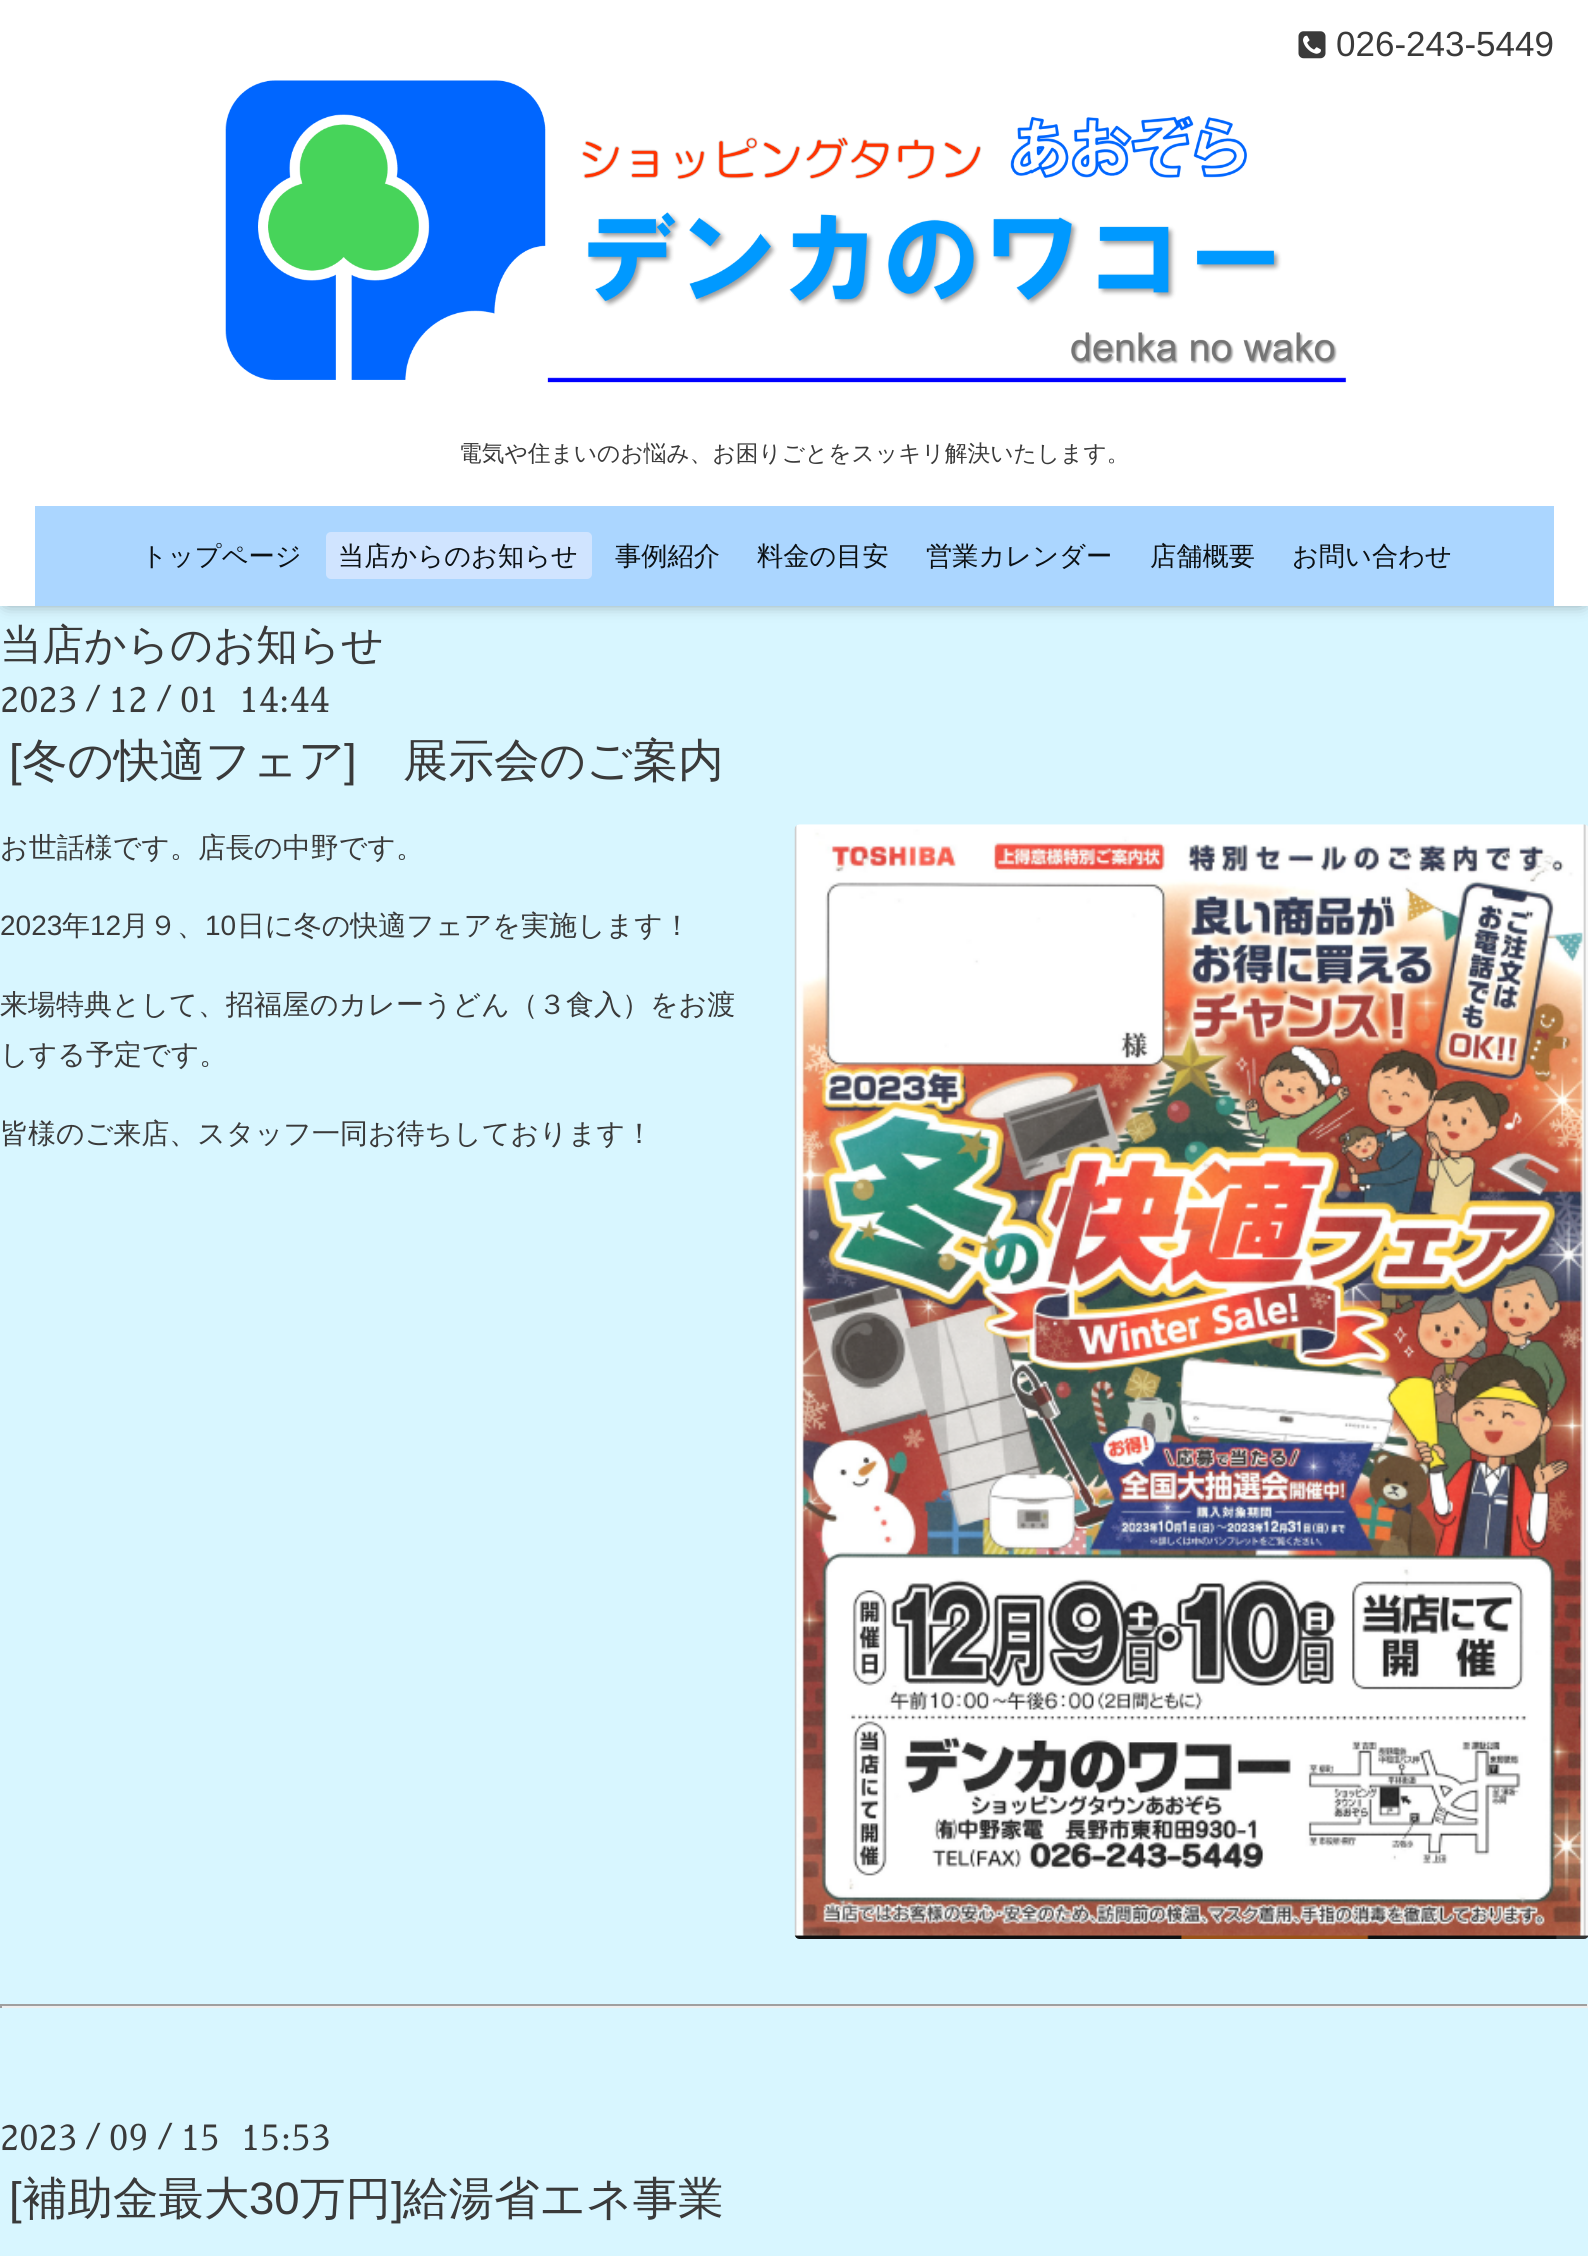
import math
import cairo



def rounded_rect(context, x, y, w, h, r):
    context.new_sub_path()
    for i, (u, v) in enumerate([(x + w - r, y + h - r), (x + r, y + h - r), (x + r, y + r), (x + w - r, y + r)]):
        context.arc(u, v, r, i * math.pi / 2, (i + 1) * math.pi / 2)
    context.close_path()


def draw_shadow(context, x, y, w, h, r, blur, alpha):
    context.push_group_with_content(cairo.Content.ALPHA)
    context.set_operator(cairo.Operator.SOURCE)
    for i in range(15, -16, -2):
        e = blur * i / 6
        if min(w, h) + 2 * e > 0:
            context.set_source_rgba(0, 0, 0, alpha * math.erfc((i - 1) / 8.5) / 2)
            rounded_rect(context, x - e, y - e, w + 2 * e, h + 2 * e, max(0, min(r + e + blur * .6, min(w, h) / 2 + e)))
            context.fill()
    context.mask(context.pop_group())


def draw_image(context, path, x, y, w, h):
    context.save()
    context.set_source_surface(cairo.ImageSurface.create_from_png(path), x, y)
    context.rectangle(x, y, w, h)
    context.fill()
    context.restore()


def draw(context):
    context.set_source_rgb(216 / 255, 246 / 255, 1)
    context.paint()
    context.set_source_rgb(0, 0, 0)
    draw_shadow(context, 7, 9, 1575, 591, 0, 9, 0.6)
    context.set_source_rgb(1, 1, 1)
    context.rectangle(0, 0, 1588, 606)
    context.fill()
    draw_image(context, "images/1.png", 1298, 31, 28, 28)
    draw_image(context, "images/2.png", 225, 80, 1122, 303)
    context.set_source_rgb(171 / 255, 214 / 255, 1)
    context.rectangle(35, 506, 1519, 100)
    context.fill()
    context.set_source_rgb(208 / 255, 228 / 255, 1)
    rounded_rect(context, 326, 532, 266, 47, 5)
    context.fill()
    draw_image(context, "images/3.png", 794, 824, 794, 1115)
    context.set_source_rgb(159 / 255, 159 / 255, 159 / 255)
    context.rectangle(0, 2004, 1588, 2)
    context.fill()
    context.set_source_rgb(238 / 255, 238 / 255, 238 / 255)
    context.rectangle(1587, 2004, 1, 4)
    context.fill()
    context.rectangle(0, 2006, 1588, 2)
    context.fill()
    context.set_source_rgb(159 / 255, 159 / 255, 159 / 255)
    context.rectangle(0, 2004, 2, 4)
    context.fill()
    context.select_font_face("Liberation Sans")
    context.set_font_size(35)
    context.set_source_rgb(58 / 255, 58 / 255, 58 / 255)
    context.move_to(1336, 56)
    context.show_text("026-243-5449")
    context.select_font_face("WenQuanYi Zen Hei Medium")
    context.set_font_size(22.75)
    context.move_to(459, 461)
    context.show_text("電気や住まいのお悩み、お困りごとをスッキリ解決いたします。")
    context.set_font_size(26.25)
    context.set_source_rgb(12 / 255, 17 / 255, 20 / 255)
    context.move_to(141, 565)
    context.show_text("トップページ")
    context.move_to(338, 565)
    context.show_text("当店からのお知らせ")
    context.move_to(615, 565)
    context.show_text("事例紹介")
    context.move_to(757, 565)
    context.show_text("料金の目安")
    context.move_to(926, 565)
    context.show_text("営業カレンダー")
    context.move_to(1150, 565)
    context.show_text("店舗概要")
    context.move_to(1292, 565)
    context.show_text("お問い合わせ")
    context.set_font_size(42)
    context.set_source_rgb(58 / 255, 58 / 255, 58 / 255)
    context.move_to(0, 659)
    context.show_text("当店からのお知らせ")
    context.select_font_face("Sawarabi Mincho")
    context.set_font_size(35)
    context.move_to(0, 712)
    context.show_text("2023")
    context.select_font_face("Sawarabi Mincho", cairo.FontSlant.NORMAL, cairo.FontWeight.BOLD)
    context.set_font_size(28)
    context.move_to(85, 708)
    context.show_text("/")
    context.select_font_face("Sawarabi Mincho")
    context.set_font_size(35)
    context.move_to(109, 712)
    context.show_text("12")
    context.select_font_face("Sawarabi Mincho", cairo.FontSlant.NORMAL, cairo.FontWeight.BOLD)
    context.set_font_size(28)
    context.move_to(156, 708)
    context.show_text("/")
    context.select_font_face("Sawarabi Mincho")
    context.set_font_size(35)
    context.move_to(180, 712)
    context.show_text("01  14:44")
    context.select_font_face("Liberation Sans")
    context.set_font_size(45.5)
    context.move_to(9, 776)
    context.show_text("[")
    context.select_font_face("WenQuanYi Zen Hei Medium")
    context.move_to(22, 776)
    context.show_text("冬の快適フェア")
    context.select_font_face("Liberation Sans")
    context.move_to(344, 776)
    context.show_text("]")
    context.select_font_face("WenQuanYi Zen Hei Medium")
    context.move_to(403, 776)
    context.show_text("展示会のご案内")
    context.set_font_size(28)
    context.move_to(0, 857)
    context.show_text("お世話様です。店長の中野です。")
    context.select_font_face("Liberation Sans")
    context.move_to(0, 935)
    context.show_text("2023")
    context.select_font_face("WenQuanYi Zen Hei Medium")
    context.move_to(62, 935)
    context.show_text("年")
    context.select_font_face("Liberation Sans")
    context.move_to(90, 935)
    context.show_text("12")
    context.select_font_face("WenQuanYi Zen Hei Medium")
    context.move_to(121, 935)
    context.show_text("月９、")
    context.select_font_face("Liberation Sans")
    context.move_to(205, 935)
    context.show_text("10")
    context.select_font_face("WenQuanYi Zen Hei Medium")
    context.move_to(237, 935)
    context.show_text("日に冬の快適フェアを実施します！")
    context.move_to(0, 1014)
    context.show_text("来場特典として、招福屋のカレーうどん（３食入）をお渡")
    context.move_to(0, 1064)
    context.show_text("しする予定です。")
    context.move_to(0, 1143)
    context.show_text("皆様のご来店、スタッフ一同お待ちしております！")
    context.select_font_face("Sawarabi Mincho")
    context.set_font_size(35)
    context.move_to(0, 2150)
    context.show_text("2023")
    context.select_font_face("Sawarabi Mincho", cairo.FontSlant.NORMAL, cairo.FontWeight.BOLD)
    context.set_font_size(28)
    context.move_to(85, 2146)
    context.show_text("/")
    context.select_font_face("Sawarabi Mincho")
    context.set_font_size(35)
    context.move_to(109, 2150)
    context.show_text("09")
    context.select_font_face("Sawarabi Mincho", cairo.FontSlant.NORMAL, cairo.FontWeight.BOLD)
    context.set_font_size(28)
    context.move_to(157, 2146)
    context.show_text("/")
    context.select_font_face("Sawarabi Mincho")
    context.set_font_size(35)
    context.move_to(181, 2150)
    context.show_text("15  15:53")
    context.select_font_face("Liberation Sans")
    context.set_font_size(45.5)
    context.move_to(9, 2214)
    context.show_text("[")
    context.select_font_face("WenQuanYi Zen Hei Medium")
    context.move_to(22, 2214)
    context.show_text("補助金最大")
    context.select_font_face("Liberation Sans")
    context.move_to(249, 2214)
    context.show_text("30")
    context.select_font_face("WenQuanYi Zen Hei Medium")
    context.move_to(300, 2214)
    context.show_text("万円")
    context.select_font_face("Liberation Sans")
    context.move_to(391, 2214)
    context.show_text("]")
    context.select_font_face("WenQuanYi Zen Hei Medium")
    context.move_to(403, 2214)
    context.show_text("給湯省エネ事業")


surface = cairo.ImageSurface(cairo.Format.RGB24, 1588, 2256)
context = cairo.Context(surface)
options = cairo.FontOptions()
options.set_hint_metrics(cairo.HintMetrics.OFF)
options.set_hint_style(cairo.HintStyle.NONE)
context.set_font_options(options)
context.set_miter_limit(4)
draw(context)
surface.write_to_png("out.png")
